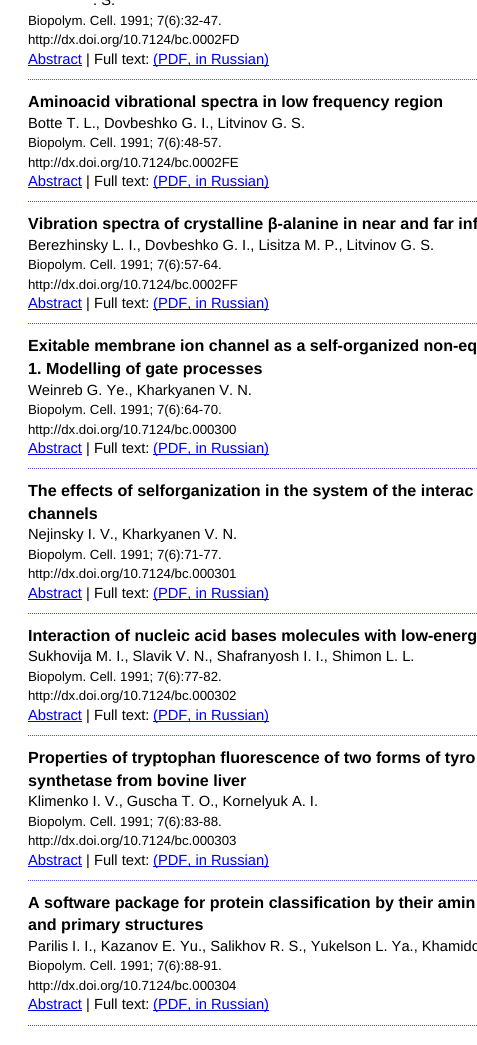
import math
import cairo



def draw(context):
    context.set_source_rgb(1, 1, 1)
    context.paint()
    context.set_source_rgb(0, 0, 238 / 255)
    context.rectangle(28, 65, 54, 1)
    context.fill()
    context.rectangle(153, 65, 116, 1)
    context.fill()
    context.new_path()
    context.move_to(28, 79.5)
    context.line_to(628, 79.5)
    context.set_source_rgb(79 / 255, 79 / 255, 207 / 255)
    context.set_line_width(1)
    context.set_dash([1, 1])
    context.stroke()
    context.set_source_rgb(0, 0, 238 / 255)
    context.rectangle(28, 187, 54, 1)
    context.fill()
    context.rectangle(153, 187, 116, 1)
    context.fill()
    context.new_path()
    context.move_to(28, 201.5)
    context.line_to(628, 201.5)
    context.set_source_rgb(79 / 255, 79 / 255, 207 / 255)
    context.stroke()
    context.set_source_rgb(0, 0, 238 / 255)
    context.rectangle(28, 309, 54, 1)
    context.fill()
    context.rectangle(153, 309, 116, 1)
    context.fill()
    context.new_path()
    context.move_to(28, 323.5)
    context.line_to(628, 323.5)
    context.set_source_rgb(79 / 255, 79 / 255, 207 / 255)
    context.stroke()
    context.set_source_rgb(0, 0, 238 / 255)
    context.rectangle(28, 454, 54, 1)
    context.fill()
    context.rectangle(153, 454, 116, 1)
    context.fill()
    context.new_path()
    context.move_to(28, 468.5)
    context.line_to(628, 468.5)
    context.set_source_rgb(79 / 255, 79 / 255, 207 / 255)
    context.stroke()
    context.set_source_rgb(0, 0, 238 / 255)
    context.rectangle(28, 599, 54, 1)
    context.fill()
    context.rectangle(153, 599, 116, 1)
    context.fill()
    context.new_path()
    context.move_to(28, 613.5)
    context.line_to(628, 613.5)
    context.set_source_rgb(79 / 255, 79 / 255, 207 / 255)
    context.stroke()
    context.set_source_rgb(0, 0, 238 / 255)
    context.rectangle(28, 721, 54, 1)
    context.fill()
    context.rectangle(153, 721, 116, 1)
    context.fill()
    context.new_path()
    context.move_to(28, 735.5)
    context.line_to(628, 735.5)
    context.set_source_rgb(79 / 255, 79 / 255, 207 / 255)
    context.stroke()
    context.set_source_rgb(0, 0, 238 / 255)
    context.rectangle(28, 866, 54, 1)
    context.fill()
    context.rectangle(153, 866, 116, 1)
    context.fill()
    context.new_path()
    context.move_to(28, 880.5)
    context.line_to(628, 880.5)
    context.set_source_rgb(79 / 255, 79 / 255, 207 / 255)
    context.stroke()
    context.set_source_rgb(0, 0, 238 / 255)
    context.rectangle(28, 1010, 54, 1)
    context.fill()
    context.rectangle(153, 1010, 116, 1)
    context.fill()
    context.new_path()
    context.move_to(28, 1025.5)
    context.line_to(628, 1025.5)
    context.set_source_rgb(79 / 255, 79 / 255, 207 / 255)
    context.stroke()
    context.select_font_face("Liberation Sans")
    context.set_font_size(14.7)
    context.set_source_rgb(0, 0, 0)
    context.move_to(93, 5)
    context.show_text(". S.")
    context.set_font_size(13.25)
    context.move_to(28, 25)
    context.show_text("Biopolym. Cell. 1991; 7(6):32-47.")
    context.move_to(28, 44)
    context.show_text("http://dx.doi.org/10.7124/bc.0002FD")
    context.set_font_size(14.7)
    context.set_source_rgb(0, 0, 238 / 255)
    context.move_to(28, 64)
    context.show_text("Abstract")
    context.set_source_rgb(0, 0, 0)
    context.move_to(86, 64)
    context.show_text("| Full text:")
    context.set_source_rgb(0, 0, 238 / 255)
    context.move_to(153, 64)
    context.show_text("(PDF, in Russian)")
    context.select_font_face("Liberation Sans", cairo.FontSlant.NORMAL, cairo.FontWeight.BOLD)
    context.set_font_size(16.1)
    context.set_source_rgb(0, 0, 0)
    context.move_to(28, 107)
    context.show_text("Aminoacid vibrational spectra in low frequency region")
    context.select_font_face("Liberation Sans")
    context.set_font_size(14.7)
    context.move_to(28, 128)
    context.show_text("Botte T. L., Dovbeshko G. I., Litvinov G. S.")
    context.set_font_size(13.25)
    context.move_to(28, 147)
    context.show_text("Biopolym. Cell. 1991; 7(6):48-57.")
    context.move_to(28, 167)
    context.show_text("http://dx.doi.org/10.7124/bc.0002FE")
    context.set_font_size(14.7)
    context.set_source_rgb(0, 0, 238 / 255)
    context.move_to(28, 186)
    context.show_text("Abstract")
    context.set_source_rgb(0, 0, 0)
    context.move_to(86, 186)
    context.show_text("| Full text:")
    context.set_source_rgb(0, 0, 238 / 255)
    context.move_to(153, 186)
    context.show_text("(PDF, in Russian)")
    context.select_font_face("Liberation Sans", cairo.FontSlant.NORMAL, cairo.FontWeight.BOLD)
    context.set_font_size(16.1)
    context.set_source_rgb(0, 0, 0)
    context.move_to(28, 229)
    context.show_text("Vibration spectra of crystalline β-alanine in near and far inf")
    context.select_font_face("Liberation Sans")
    context.set_font_size(14.7)
    context.move_to(28, 250)
    context.show_text("Berezhinsky L. I., Dovbeshko G. I., Lisitza M. P., Litvinov G. S.")
    context.set_font_size(13.25)
    context.move_to(28, 269)
    context.show_text("Biopolym. Cell. 1991; 7(6):57-64.")
    context.move_to(28, 289)
    context.show_text("http://dx.doi.org/10.7124/bc.0002FF")
    context.set_font_size(14.7)
    context.set_source_rgb(0, 0, 238 / 255)
    context.move_to(28, 308)
    context.show_text("Abstract")
    context.set_source_rgb(0, 0, 0)
    context.move_to(86, 308)
    context.show_text("| Full text:")
    context.set_source_rgb(0, 0, 238 / 255)
    context.move_to(153, 308)
    context.show_text("(PDF, in Russian)")
    context.select_font_face("Liberation Sans", cairo.FontSlant.NORMAL, cairo.FontWeight.BOLD)
    context.set_font_size(16.1)
    context.set_source_rgb(0, 0, 0)
    context.move_to(28, 351)
    context.show_text("Exitable membrane ion channel as a self-organized non-eq")
    context.move_to(28, 374)
    context.show_text("1. Modelling of gate processes")
    context.select_font_face("Liberation Sans")
    context.set_font_size(14.7)
    context.move_to(28, 395)
    context.show_text("Weinreb G. Ye., Kharkyanen V. N.")
    context.set_font_size(13.25)
    context.move_to(28, 414)
    context.show_text("Biopolym. Cell. 1991; 7(6):64-70.")
    context.move_to(28, 434)
    context.show_text("http://dx.doi.org/10.7124/bc.000300")
    context.set_font_size(14.7)
    context.set_source_rgb(0, 0, 238 / 255)
    context.move_to(28, 453)
    context.show_text("Abstract")
    context.set_source_rgb(0, 0, 0)
    context.move_to(86, 453)
    context.show_text("| Full text:")
    context.set_source_rgb(0, 0, 238 / 255)
    context.move_to(153, 453)
    context.show_text("(PDF, in Russian)")
    context.select_font_face("Liberation Sans", cairo.FontSlant.NORMAL, cairo.FontWeight.BOLD)
    context.set_font_size(16.1)
    context.set_source_rgb(0, 0, 0)
    context.move_to(28, 496)
    context.show_text("The effects of selforganization in the system of the interac")
    context.move_to(28, 519)
    context.show_text("channels")
    context.select_font_face("Liberation Sans")
    context.set_font_size(14.7)
    context.move_to(28, 539)
    context.show_text("Nejinsky I. V., Kharkyanen V. N.")
    context.set_font_size(13.25)
    context.move_to(28, 559)
    context.show_text("Biopolym. Cell. 1991; 7(6):71-77.")
    context.move_to(28, 578)
    context.show_text("http://dx.doi.org/10.7124/bc.000301")
    context.set_font_size(14.7)
    context.set_source_rgb(0, 0, 238 / 255)
    context.move_to(28, 598)
    context.show_text("Abstract")
    context.set_source_rgb(0, 0, 0)
    context.move_to(86, 598)
    context.show_text("| Full text:")
    context.set_source_rgb(0, 0, 238 / 255)
    context.move_to(153, 598)
    context.show_text("(PDF, in Russian)")
    context.select_font_face("Liberation Sans", cairo.FontSlant.NORMAL, cairo.FontWeight.BOLD)
    context.set_font_size(16.1)
    context.set_source_rgb(0, 0, 0)
    context.move_to(28, 641)
    context.show_text("Interaction of nucleic acid bases molecules with low-energ")
    context.select_font_face("Liberation Sans")
    context.set_font_size(14.7)
    context.move_to(28, 661)
    context.show_text("Sukhovija M. I., Slavik V. N., Shafranyosh I. I., Shimon L. L.")
    context.set_font_size(13.25)
    context.move_to(28, 681)
    context.show_text("Biopolym. Cell. 1991; 7(6):77-82.")
    context.move_to(28, 700)
    context.show_text("http://dx.doi.org/10.7124/bc.000302")
    context.set_font_size(14.7)
    context.set_source_rgb(0, 0, 238 / 255)
    context.move_to(28, 720)
    context.show_text("Abstract")
    context.set_source_rgb(0, 0, 0)
    context.move_to(86, 720)
    context.show_text("| Full text:")
    context.set_source_rgb(0, 0, 238 / 255)
    context.move_to(153, 720)
    context.show_text("(PDF, in Russian)")
    context.select_font_face("Liberation Sans", cairo.FontSlant.NORMAL, cairo.FontWeight.BOLD)
    context.set_font_size(16.1)
    context.set_source_rgb(0, 0, 0)
    context.move_to(28, 763)
    context.show_text("Properties of tryptophan fluorescence of two forms of tyro")
    context.move_to(28, 786)
    context.show_text("synthetase from bovine liver")
    context.select_font_face("Liberation Sans")
    context.set_font_size(14.7)
    context.move_to(28, 806)
    context.show_text("Klimenko I. V., Guscha T. O., Kornelyuk A. I.")
    context.set_font_size(13.25)
    context.move_to(28, 826)
    context.show_text("Biopolym. Cell. 1991; 7(6):83-88.")
    context.move_to(28, 845)
    context.show_text("http://dx.doi.org/10.7124/bc.000303")
    context.set_font_size(14.7)
    context.set_source_rgb(0, 0, 238 / 255)
    context.move_to(28, 865)
    context.show_text("Abstract")
    context.set_source_rgb(0, 0, 0)
    context.move_to(86, 865)
    context.show_text("| Full text:")
    context.set_source_rgb(0, 0, 238 / 255)
    context.move_to(153, 865)
    context.show_text("(PDF, in Russian)")
    context.select_font_face("Liberation Sans", cairo.FontSlant.NORMAL, cairo.FontWeight.BOLD)
    context.set_font_size(16.1)
    context.set_source_rgb(0, 0, 0)
    context.move_to(28, 908)
    context.show_text("A software package for protein classification by their amin")
    context.move_to(28, 930)
    context.show_text("and primary structures")
    context.select_font_face("Liberation Sans")
    context.set_font_size(14.7)
    context.move_to(28, 951)
    context.show_text("Parilis I. I., Kazanov E. Yu., Salikhov R. S., Yukelson L. Ya., Khamido")
    context.set_font_size(13.25)
    context.move_to(28, 970)
    context.show_text("Biopolym. Cell. 1991; 7(6):88-91.")
    context.move_to(28, 990)
    context.show_text("http://dx.doi.org/10.7124/bc.000304")
    context.set_font_size(14.7)
    context.set_source_rgb(0, 0, 238 / 255)
    context.move_to(28, 1009)
    context.show_text("Abstract")
    context.set_source_rgb(0, 0, 0)
    context.move_to(86, 1009)
    context.show_text("| Full text:")
    context.set_source_rgb(0, 0, 238 / 255)
    context.move_to(153, 1009)
    context.show_text("(PDF, in Russian)")


surface = cairo.ImageSurface(cairo.Format.RGB24, 477, 1045)
context = cairo.Context(surface)
options = cairo.FontOptions()
options.set_hint_metrics(cairo.HintMetrics.OFF)
options.set_hint_style(cairo.HintStyle.NONE)
context.set_font_options(options)
context.set_miter_limit(4)
draw(context)
surface.write_to_png("out.png")
